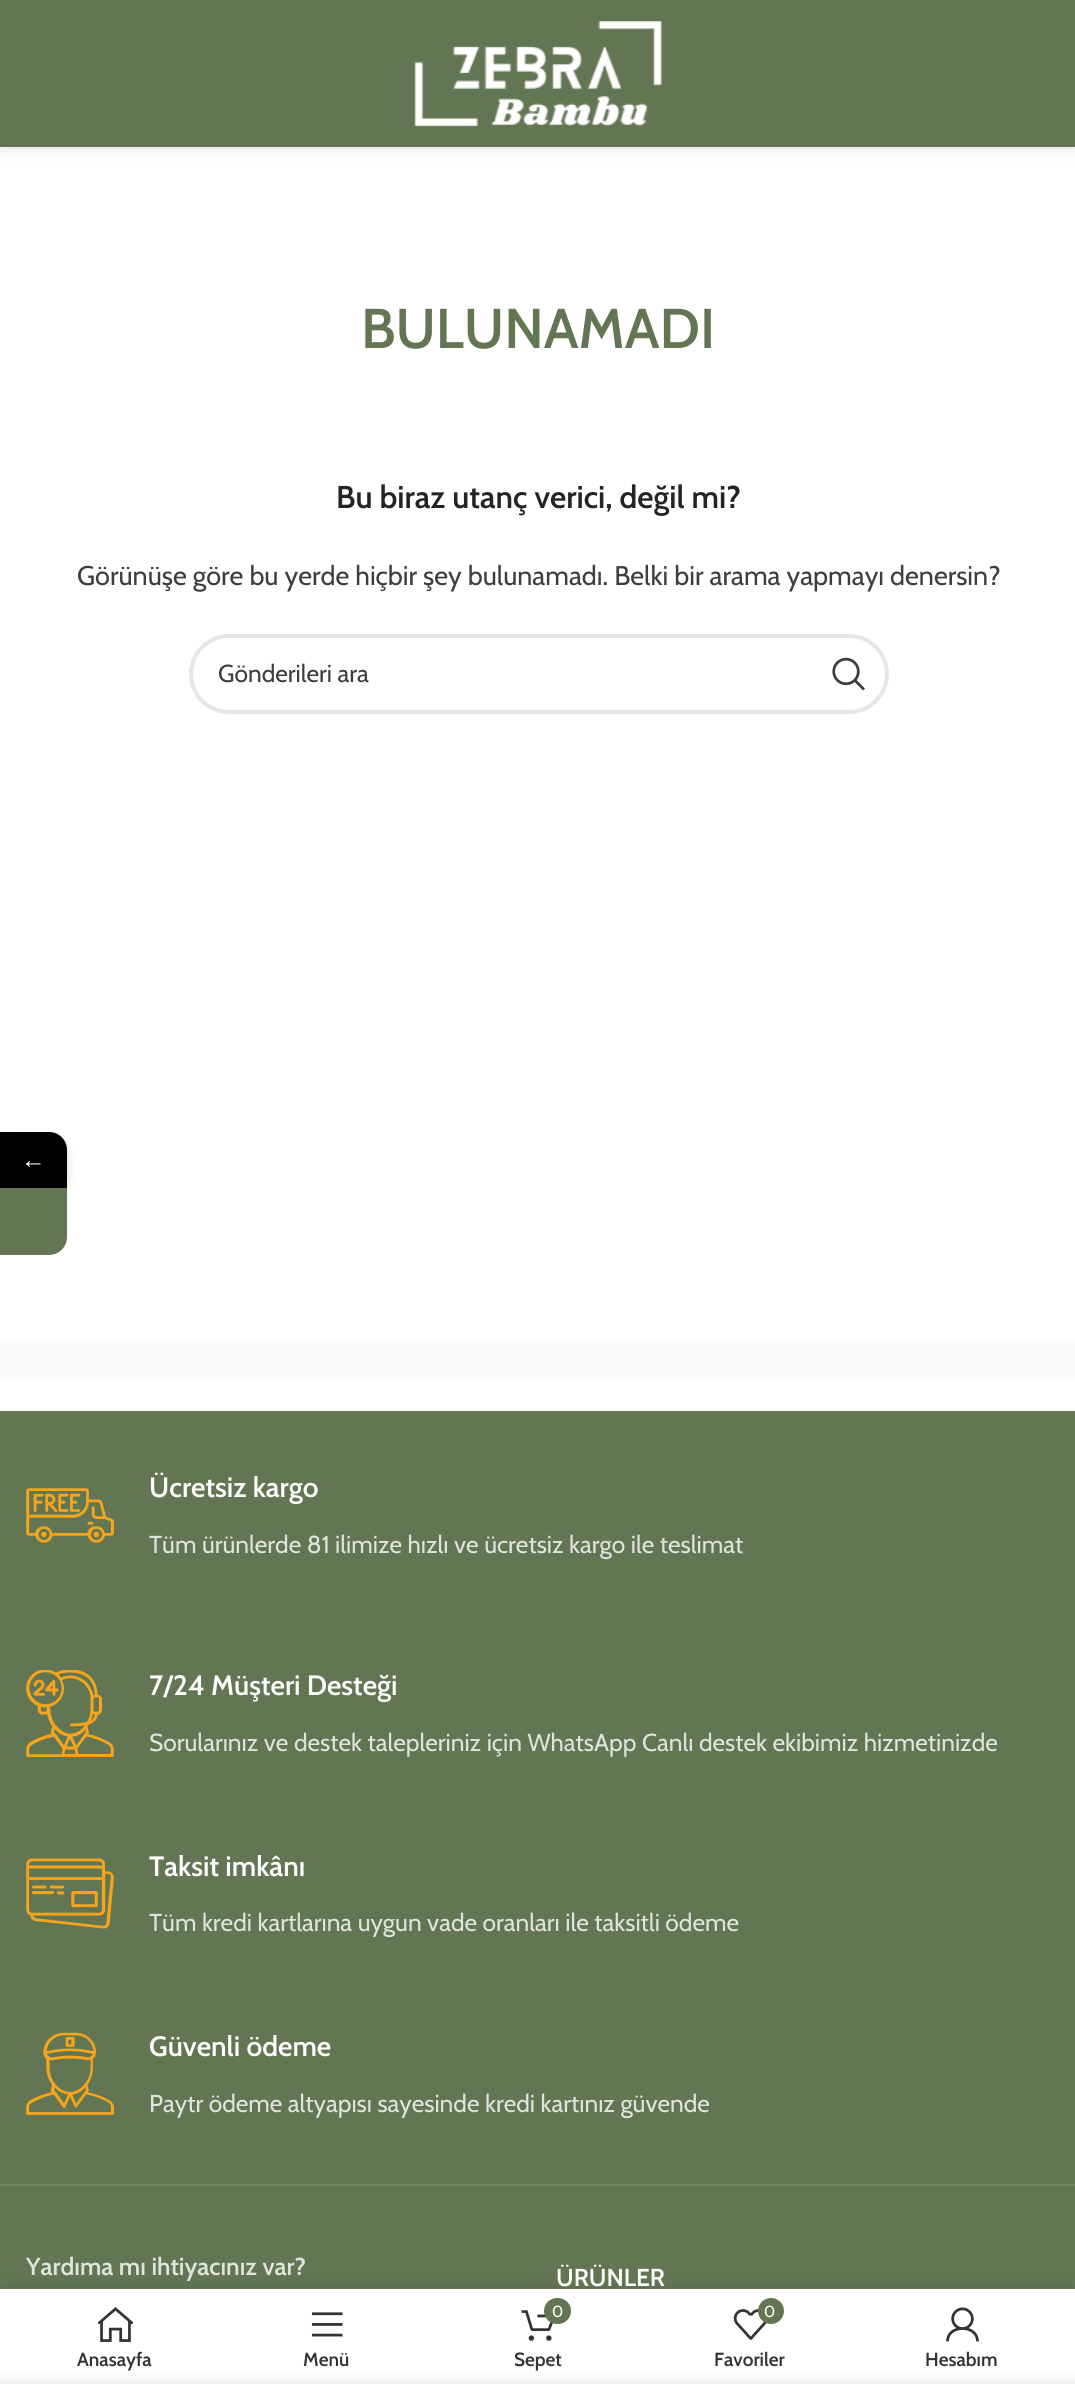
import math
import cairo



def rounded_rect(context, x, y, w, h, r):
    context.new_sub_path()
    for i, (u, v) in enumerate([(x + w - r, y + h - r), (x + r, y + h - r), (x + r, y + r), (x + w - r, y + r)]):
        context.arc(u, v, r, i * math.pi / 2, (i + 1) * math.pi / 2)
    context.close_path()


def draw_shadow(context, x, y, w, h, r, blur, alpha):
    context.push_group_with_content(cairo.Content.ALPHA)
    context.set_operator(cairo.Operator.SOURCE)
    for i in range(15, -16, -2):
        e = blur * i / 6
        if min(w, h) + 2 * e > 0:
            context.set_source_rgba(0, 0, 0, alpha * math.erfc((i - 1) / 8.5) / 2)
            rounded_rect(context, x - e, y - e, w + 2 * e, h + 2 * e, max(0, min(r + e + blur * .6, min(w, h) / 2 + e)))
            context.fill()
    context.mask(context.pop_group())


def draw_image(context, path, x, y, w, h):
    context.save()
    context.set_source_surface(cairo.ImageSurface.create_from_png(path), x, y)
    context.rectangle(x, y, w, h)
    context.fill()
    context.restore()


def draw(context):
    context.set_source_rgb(1, 1, 1)
    context.paint()
    context.set_source_rgb(0, 0, 0)
    draw_shadow(context, 0, 2, 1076, 147, 0, 7, 0.1)
    context.set_source_rgb(99 / 255, 118 / 255, 84 / 255)
    context.rectangle(0, 0, 1075, 147)
    context.fill()
    draw_image(context, "images/1.png", 414, 21, 248, 106)
    rounded_rect(context, 191, 636, 696, 76, 38)
    context.set_source_rgb(230 / 255, 230 / 255, 230 / 255)
    context.set_line_width(4)
    context.stroke()
    draw_image(context, "images/2.png", 832, 657, 33, 34)
    context.set_source_rgb(249 / 255, 249 / 255, 249 / 255)
    context.rectangle(0, 1341, 1075, 38)
    context.fill()
    context.set_source_rgb(99 / 255, 118 / 255, 84 / 255)
    context.rectangle(0, 1411, 1075, 878)
    context.fill()
    context.set_source_rgb(115 / 255, 132 / 255, 101 / 255)
    context.rectangle(0, 2184, 1075, 2)
    context.fill()
    draw_image(context, "images/3.png", 26, 1488, 88, 55)
    draw_image(context, "images/4.png", 26, 1670, 88, 87)
    draw_image(context, "images/5.png", 26, 1858, 88, 71)
    draw_image(context, "images/6.png", 26, 2032, 88, 83)
    context.set_source_rgb(0, 0, 0)
    draw_shadow(context, 0, 1138, 67, 56, 18, 5, 0.16)
    context.set_source_rgb(0, 0, 0)
    context.new_path()
    context.move_to(0, 1132)
    context.line_to(49, 1132)
    context.curve_to(59, 1132, 67, 1140, 67, 1150)
    context.line_to(67, 1188)
    context.line_to(0, 1188)
    context.close_path()
    context.fill()
    context.set_source_rgb(99 / 255, 118 / 255, 84 / 255)
    context.new_path()
    context.move_to(0, 1188)
    context.line_to(67, 1188)
    context.line_to(67, 1237)
    context.curve_to(67, 1247, 59, 1255, 49, 1255)
    context.line_to(0, 1255)
    context.close_path()
    context.fill()
    context.set_source_rgb(0, 0, 0)
    draw_shadow(context, 0, 2289, 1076, 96, 0, 8, 0.12)
    context.set_source_rgb(1, 1, 1)
    context.rectangle(0, 2289, 1075, 95)
    context.fill()
    draw_image(context, "images/7.png", 98, 2307, 35, 35)
    draw_image(context, "images/8.png", 311, 2312, 32, 25)
    draw_image(context, "images/9.png", 521, 2310, 32, 31)
    context.set_source_rgb(99 / 255, 118 / 255, 84 / 255)
    rounded_rect(context, 544, 2298, 27, 26, 13)
    context.fill()
    draw_image(context, "images/10.png", 733, 2309, 34, 31)
    context.arc(771, 2311, 13, 0, 2 * math.pi)
    context.fill()
    draw_image(context, "images/11.png", 946, 2307, 33, 35)
    context.set_source_rgb(0, 0, 0)
    draw_shadow(context, 0, 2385, 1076, 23, 0, 8, 0.14)
    context.select_font_face("Cabin SemiBold")
    context.set_font_size(56)
    context.set_source_rgb(99 / 255, 118 / 255, 84 / 255)
    context.move_to(361, 348)
    context.show_text("BULUNAMADI")
    context.set_font_size(31.5)
    context.set_source_rgb(36 / 255, 36 / 255, 36 / 255)
    context.move_to(336, 508)
    context.show_text("Bu biraz utanç verici, değil mi?")
    context.select_font_face("Cabin")
    context.set_font_size(26.95)
    context.set_source_rgb(61 / 255, 61 / 255, 61 / 255)
    context.move_to(77, 585)
    context.show_text("Görünüşe göre bu yerde hiçbir şey bulunamadı. Belki bir arama yapmayı denersin?")
    context.set_font_size(24.5)
    context.move_to(218, 682)
    context.show_text("Gönderileri ara")
    context.select_font_face("Cabin SemiBold")
    context.set_font_size(28)
    context.set_source_rgb(1, 1, 1)
    context.move_to(149, 1497)
    context.show_text("Ücretsiz kargo")
    context.select_font_face("Cabin")
    context.set_font_size(24.5)
    context.set_source_rgb(224 / 255, 228 / 255, 221 / 255)
    context.move_to(149, 1553)
    context.show_text("Tüm ürünlerde 81 ilimize hızlı ve ücretsiz kargo ile teslimat")
    context.select_font_face("Cabin SemiBold")
    context.set_font_size(28)
    context.set_source_rgb(1, 1, 1)
    context.move_to(149, 1695)
    context.show_text("7/24 Müşteri Desteği")
    context.select_font_face("Cabin")
    context.set_font_size(24.5)
    context.set_source_rgb(224 / 255, 228 / 255, 221 / 255)
    context.move_to(149, 1751)
    context.show_text("Sorularınız ve destek talepleriniz için WhatsApp Canlı destek ekibimiz hizmetinizde")
    context.select_font_face("Cabin SemiBold")
    context.set_font_size(28)
    context.set_source_rgb(1, 1, 1)
    context.move_to(149, 1876)
    context.show_text("Taksit imkânı")
    context.select_font_face("Cabin")
    context.set_font_size(24.5)
    context.set_source_rgb(224 / 255, 228 / 255, 221 / 255)
    context.move_to(149, 1931)
    context.show_text("Tüm kredi kartlarına uygun vade oranları ile taksitli ödeme")
    context.select_font_face("Cabin SemiBold")
    context.set_font_size(28)
    context.set_source_rgb(1, 1, 1)
    context.move_to(149, 2056)
    context.show_text("Güvenli ödeme")
    context.select_font_face("Cabin")
    context.set_font_size(24.5)
    context.set_source_rgb(224 / 255, 228 / 255, 221 / 255)
    context.move_to(149, 2112)
    context.show_text("Paytr ödeme altyapısı sayesinde kredi kartınız güvende")
    context.select_font_face("Cabin SemiBold")
    context.move_to(26, 2275)
    context.show_text("Yardıma mı ihtiyacınız var?")
    context.set_source_rgb(1, 1, 1)
    context.move_to(556, 2286)
    context.show_text("ÜRÜNLER")
    context.select_font_face("Liberation Serif")
    context.move_to(21, 1168)
    context.show_text("←")
    context.select_font_face("Cabin SemiBold")
    context.set_font_size(19)
    context.set_source_rgb(51 / 255, 51 / 255, 51 / 255)
    context.move_to(77, 2366)
    context.show_text("Anasayfa")
    context.move_to(303, 2366)
    context.show_text("Menü")
    context.select_font_face("Cabin")
    context.set_font_size(16)
    context.set_source_rgb(1, 1, 1)
    context.move_to(552, 2317)
    context.show_text("0")
    context.select_font_face("Cabin SemiBold")
    context.set_font_size(19)
    context.set_source_rgb(51 / 255, 51 / 255, 51 / 255)
    context.move_to(514, 2366)
    context.show_text("Sepet")
    context.select_font_face("Cabin")
    context.set_font_size(16)
    context.set_source_rgb(1, 1, 1)
    context.move_to(764, 2317)
    context.show_text("0")
    context.select_font_face("Cabin SemiBold")
    context.set_font_size(19)
    context.set_source_rgb(51 / 255, 51 / 255, 51 / 255)
    context.move_to(714, 2366)
    context.show_text("Favoriler")
    context.move_to(925, 2366)
    context.show_text("Hesabım")


surface = cairo.ImageSurface(cairo.Format.RGB24, 1075, 2384)
context = cairo.Context(surface)
options = cairo.FontOptions()
options.set_hint_metrics(cairo.HintMetrics.OFF)
options.set_hint_style(cairo.HintStyle.NONE)
context.set_font_options(options)
context.set_miter_limit(4)
draw(context)
surface.write_to_png("out.png")
